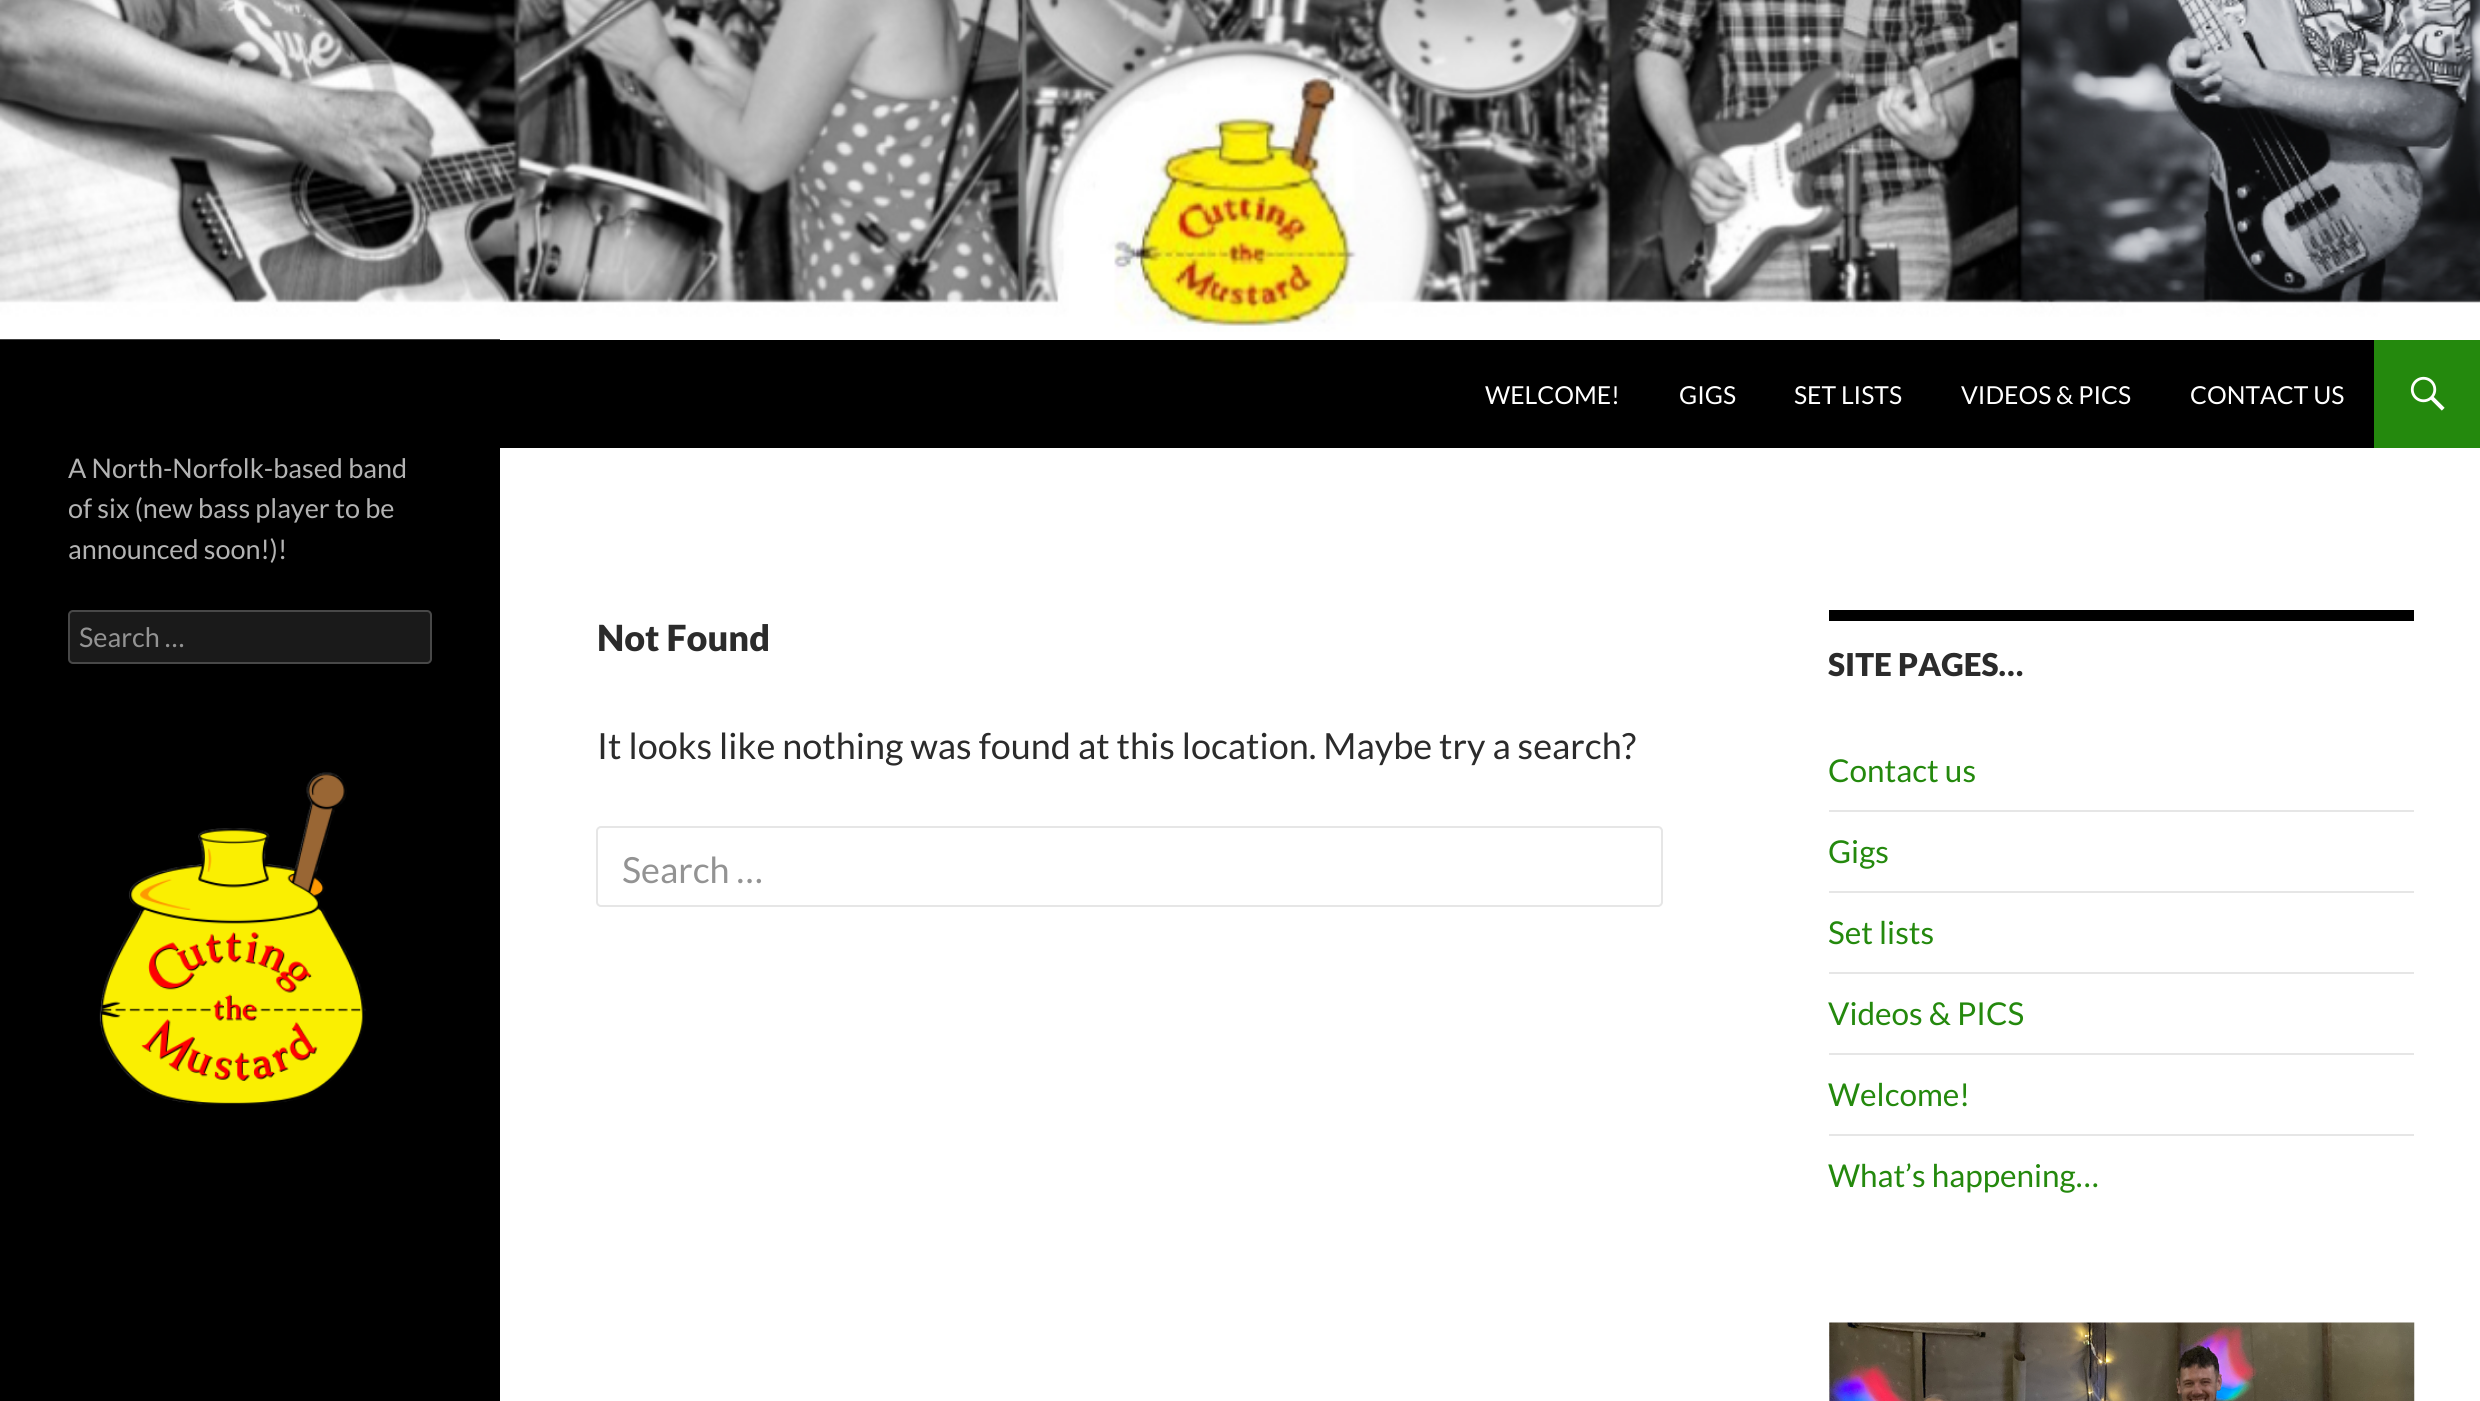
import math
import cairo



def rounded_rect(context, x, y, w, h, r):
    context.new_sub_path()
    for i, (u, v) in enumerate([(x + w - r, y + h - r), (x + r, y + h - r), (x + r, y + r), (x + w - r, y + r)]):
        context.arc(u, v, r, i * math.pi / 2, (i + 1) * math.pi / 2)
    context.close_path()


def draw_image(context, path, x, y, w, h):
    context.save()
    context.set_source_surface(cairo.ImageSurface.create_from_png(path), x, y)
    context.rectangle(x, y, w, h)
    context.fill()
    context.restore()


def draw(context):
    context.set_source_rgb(1, 1, 1)
    context.paint()
    context.set_source_rgb(0, 0, 0)
    context.rectangle(0, 339, 500, 1062)
    context.fill()
    draw_image(context, "images/1.png", 0, 0, 2480, 340)
    context.rectangle(500, 340, 1874, 108)
    context.fill()
    context.set_source_rgb(36 / 255, 137 / 255, 13 / 255)
    context.rectangle(2374, 340, 106, 108)
    context.fill()
    draw_image(context, "images/2.png", 2410, 376, 35, 35)
    context.set_source_rgb(26 / 255, 26 / 255, 26 / 255)
    rounded_rect(context, 68, 610, 364, 54, 5)
    context.fill()
    rounded_rect(context, 69, 611, 362, 52, 4)
    context.set_source_rgba(1, 1, 1, 0.2)
    context.stroke()
    draw_image(context, "images/3.png", 99, 772, 267, 333)
    rounded_rect(context, 597, 827, 1065, 79, 4)
    context.set_source_rgb(230 / 255, 230 / 255, 230 / 255)
    context.stroke()
    context.set_source_rgb(0, 0, 0)
    context.rectangle(1829, 610, 585, 11)
    context.fill()
    context.set_source_rgb(230 / 255, 230 / 255, 230 / 255)
    context.rectangle(1829, 810, 585, 2)
    context.fill()
    context.rectangle(1829, 891, 585, 2)
    context.fill()
    context.rectangle(1829, 972, 585, 2)
    context.fill()
    context.rectangle(1829, 1053, 585, 2)
    context.fill()
    context.rectangle(1829, 1134, 585, 2)
    context.fill()
    draw_image(context, "images/4.png", 1829, 1322, 586, 79)
    context.select_font_face("Lato")
    context.set_font_size(24.75)
    context.set_source_rgb(1, 1, 1)
    context.move_to(1485, 404)
    context.show_text("WELCOME!")
    context.move_to(1679, 404)
    context.show_text("GIGS")
    context.move_to(1794, 404)
    context.show_text("SET LISTS")
    context.move_to(1961, 404)
    context.show_text("VIDEOS & PICS")
    context.move_to(2190, 404)
    context.show_text("CONTACT US")
    context.set_font_size(27)
    context.set_source_rgb(179 / 255, 179 / 255, 179 / 255)
    context.move_to(68, 478)
    context.show_text("A North-Norfolk-based band")
    context.move_to(68, 518)
    context.show_text("of six (new bass player to be")
    context.move_to(68, 559)
    context.show_text("announced soon!)!")
    context.set_source_rgb(147 / 255, 147 / 255, 147 / 255)
    context.move_to(79, 647)
    context.show_text("Search …")
    context.select_font_face("Lato Black")
    context.set_font_size(36)
    context.set_source_rgb(43 / 255, 43 / 255, 43 / 255)
    context.move_to(597, 651)
    context.show_text("Not Found")
    context.select_font_face("Lato")
    context.move_to(597, 759)
    context.show_text("It looks like nothing was found at this location. Maybe try a search?")
    context.set_source_rgb(147 / 255, 147 / 255, 147 / 255)
    context.move_to(622, 883)
    context.show_text("Search …")
    context.select_font_face("Lato Black")
    context.set_font_size(31.5)
    context.set_source_rgb(43 / 255, 43 / 255, 43 / 255)
    context.move_to(1828, 676)
    context.show_text("SITE PAGES…")
    context.select_font_face("Lato")
    context.set_source_rgb(36 / 255, 137 / 255, 13 / 255)
    context.move_to(1828, 782)
    context.show_text("Contact us")
    context.move_to(1828, 863)
    context.show_text("Gigs")
    context.move_to(1828, 944)
    context.show_text("Set lists")
    context.move_to(1828, 1025)
    context.show_text("Videos & PICS")
    context.move_to(1828, 1106)
    context.show_text("Welcome!")
    context.move_to(1828, 1187)
    context.show_text("What’s happening…")


surface = cairo.ImageSurface(cairo.Format.RGB24, 2480, 1401)
context = cairo.Context(surface)
options = cairo.FontOptions()
options.set_hint_metrics(cairo.HintMetrics.OFF)
options.set_hint_style(cairo.HintStyle.NONE)
context.set_font_options(options)
context.set_miter_limit(4)
draw(context)
surface.write_to_png("out.png")
